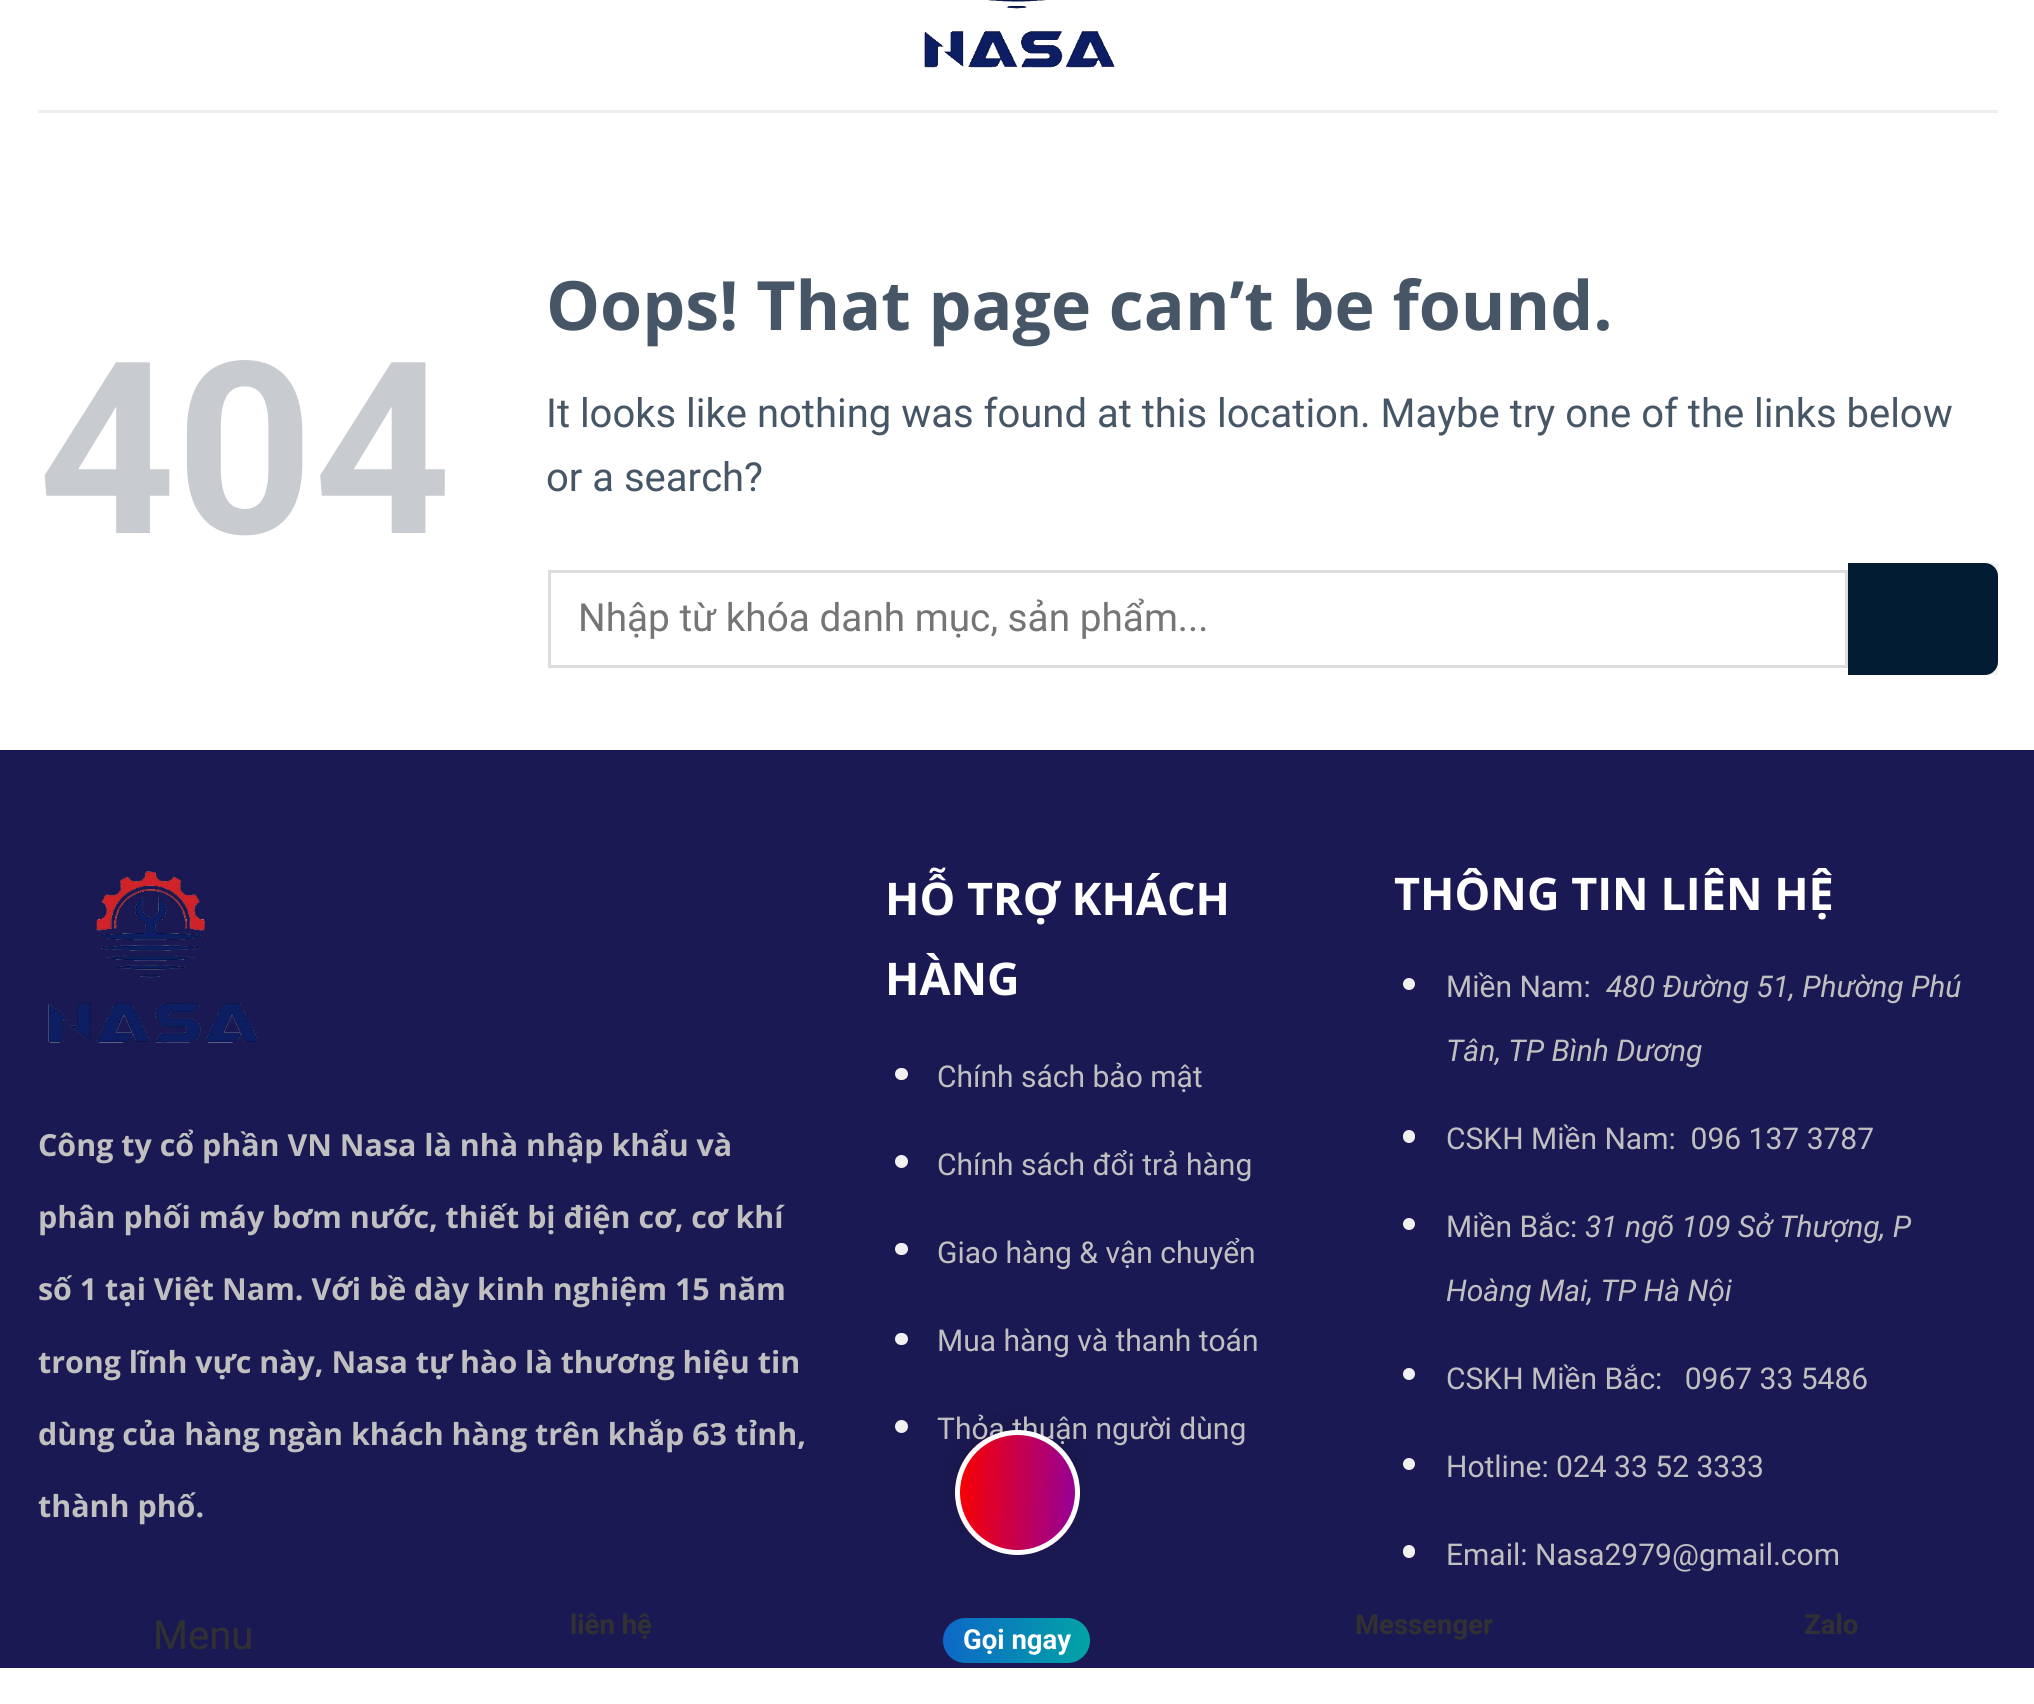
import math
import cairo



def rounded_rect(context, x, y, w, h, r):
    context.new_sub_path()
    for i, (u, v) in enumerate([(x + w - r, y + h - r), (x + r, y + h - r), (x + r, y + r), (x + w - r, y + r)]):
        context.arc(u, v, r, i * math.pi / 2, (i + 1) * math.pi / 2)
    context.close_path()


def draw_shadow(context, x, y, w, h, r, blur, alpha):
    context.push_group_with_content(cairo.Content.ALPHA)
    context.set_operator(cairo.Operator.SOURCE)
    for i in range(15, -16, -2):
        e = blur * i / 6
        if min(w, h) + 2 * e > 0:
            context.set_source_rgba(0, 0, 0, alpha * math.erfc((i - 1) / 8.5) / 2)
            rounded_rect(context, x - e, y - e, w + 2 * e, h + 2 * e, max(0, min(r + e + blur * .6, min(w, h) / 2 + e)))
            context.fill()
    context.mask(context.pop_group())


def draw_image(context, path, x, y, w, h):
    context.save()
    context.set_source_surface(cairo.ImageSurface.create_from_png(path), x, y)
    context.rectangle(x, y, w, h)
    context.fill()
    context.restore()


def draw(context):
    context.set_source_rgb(1, 1, 1)
    context.paint()
    draw_image(context, "images/1.png", 924, 0, 191, 68)
    context.set_source_rgb(237 / 255, 238 / 255, 240 / 255)
    context.rectangle(38, 110, 1960, 3)
    context.fill()
    context.rectangle(549.5, 571.5, 1297, 95)
    context.set_source_rgb(221 / 255, 221 / 255, 221 / 255)
    context.set_line_width(3)
    context.stroke()
    context.set_source_rgb(2 / 255, 28 / 255, 51 / 255)
    context.new_path()
    context.move_to(1848, 563)
    context.line_to(1985, 563)
    context.curve_to(1992, 563, 1998, 569, 1998, 576)
    context.line_to(1998, 662)
    context.curve_to(1998, 669, 1992, 675, 1985, 675)
    context.line_to(1848, 675)
    context.close_path()
    context.fill()
    context.rectangle(1849.5, 564.5, 147, 109)
    context.set_source_rgba(0, 0, 0, 0.05)
    context.stroke()
    context.set_source_rgb(27 / 255, 25 / 255, 83 / 255)
    context.rectangle(0, 750, 2034, 918)
    context.fill()
    draw_image(context, "images/2.png", 48, 871, 211, 172)
    context.set_source_rgb(241 / 255, 241 / 255, 241 / 255)
    rounded_rect(context, 895, 1068, 13, 12, 6)
    context.fill()
    context.arc(901.5, 1161.5, 6.5, 0, 2 * math.pi)
    context.fill()
    rounded_rect(context, 895, 1243, 13, 12, 6)
    context.fill()
    rounded_rect(context, 895, 1333, 13, 12, 6)
    context.fill()
    context.arc(901.5, 1426.5, 6.5, 0, 2 * math.pi)
    context.fill()
    context.arc(1409, 984, 6, 0, 2 * math.pi)
    context.fill()
    rounded_rect(context, 1403, 1130, 12, 13, 6)
    context.fill()
    context.arc(1409, 1224, 6, 0, 2 * math.pi)
    context.fill()
    context.arc(1409, 1374, 6, 0, 2 * math.pi)
    context.fill()
    context.arc(1409, 1464, 6, 0, 2 * math.pi)
    context.fill()
    rounded_rect(context, 1403, 1545, 12, 13, 6)
    context.fill()
    context.set_source_rgb(0, 0, 0)
    draw_shadow(context, 955, 1423, 125, 125, 62.5, 12.5, 0.15)
    gradient = cairo.LinearGradient(943, 1636, 1092, 1644)
    gradient.add_color_stop_rgba(0, 14 / 255, 104 / 255, 200 / 255, 1)
    gradient.add_color_stop_rgba(1, 2 / 255, 164 / 255, 165 / 255, 1)
    context.set_source(gradient)
    rounded_rect(context, 943, 1618, 147, 45, 22.5)
    context.fill()
    context.select_font_face("Roboto", cairo.FontSlant.NORMAL, cairo.FontWeight.BOLD)
    context.set_font_size(240)
    context.set_source_rgb(200 / 255, 204 / 255, 209 / 255)
    context.move_to(38, 533)
    context.show_text("404")
    context.select_font_face("Open Sans", cairo.FontSlant.NORMAL, cairo.FontWeight.BOLD)
    context.set_font_size(68)
    context.set_source_rgb(71 / 255, 86 / 255, 102 / 255)
    context.move_to(546, 330)
    context.show_text("Oops! That page can’t be found.")
    context.select_font_face("Roboto")
    context.set_font_size(40)
    context.move_to(546, 427)
    context.show_text("It looks like nothing was found at this location. Maybe try one of the links below")
    context.move_to(546, 491)
    context.show_text("or a search?")
    context.set_font_size(38.75)
    context.set_source_rgb(117 / 255, 117 / 255, 117 / 255)
    context.move_to(578, 631)
    context.show_text("Nhập từ khóa danh mục, sản phẩm...")
    context.select_font_face("Open Sans", cairo.FontSlant.NORMAL, cairo.FontWeight.BOLD)
    context.set_font_size(30.4)
    context.set_source_rgb(192 / 255, 192 / 255, 192 / 255)
    context.move_to(38, 1156)
    context.show_text("Công ty cổ phần VN Nasa là nhà nhập khẩu và")
    context.move_to(38, 1228)
    context.show_text("phân phối máy bơm nước, thiết bị điện cơ, cơ khí")
    context.move_to(38, 1300)
    context.show_text("số 1 tại Việt Nam. Với bề dày kinh nghiệm 15 năm")
    context.move_to(38, 1373)
    context.show_text("trong lĩnh vực này, Nasa tự hào là thương hiệu tin")
    context.move_to(38, 1445)
    context.show_text("dùng của hàng ngàn khách hàng trên khắp 63 tỉnh,")
    context.move_to(38, 1517)
    context.show_text("thành phố.")
    context.set_font_size(45)
    context.set_source_rgb(1, 1, 1)
    context.move_to(885, 915)
    context.show_text("HỖ TRỢ KHÁCH")
    context.move_to(885, 995)
    context.show_text("HÀNG")
    context.select_font_face("Roboto")
    context.set_font_size(30)
    context.set_source_rgb(192 / 255, 192 / 255, 192 / 255)
    context.move_to(937, 1087)
    context.show_text("Chính sách bảo mật")
    context.move_to(937, 1175)
    context.show_text("Chính sách đổi trả hàng")
    context.move_to(937, 1263)
    context.show_text("Giao hàng & vận chuyển")
    context.move_to(937, 1351)
    context.show_text("Mua hàng và thanh toán")
    context.move_to(937, 1439)
    context.show_text("Thỏa thuận người dùng")
    context.select_font_face("Open Sans", cairo.FontSlant.NORMAL, cairo.FontWeight.BOLD)
    context.set_font_size(45)
    context.set_source_rgb(1, 1, 1)
    context.move_to(1394, 910)
    context.show_text("THÔNG TIN LIÊN HỆ")
    context.select_font_face("Roboto")
    context.set_font_size(30)
    context.set_source_rgb(192 / 255, 192 / 255, 192 / 255)
    context.move_to(1446, 997)
    context.show_text("Miền Nam:")
    context.select_font_face("Roboto", cairo.FontSlant.ITALIC)
    context.move_to(1606, 997)
    context.show_text("480 Đường 51, Phường Phú")
    context.move_to(1446, 1061)
    context.show_text("Tân, TP Bình Dương")
    context.select_font_face("Roboto")
    context.move_to(1446, 1149)
    context.show_text("CSKH Miền Nam:  096 137 3787")
    context.move_to(1446, 1237)
    context.show_text("Miền Bắc:")
    context.select_font_face("Roboto", cairo.FontSlant.ITALIC)
    context.move_to(1585, 1237)
    context.show_text("31 ngõ 109 Sở Thượng, P")
    context.move_to(1446, 1301)
    context.show_text("Hoàng Mai, TP Hà Nội")
    context.select_font_face("Roboto")
    context.move_to(1446, 1389)
    context.show_text("CSKH Miền Bắc:   0967 33 5486")
    context.move_to(1446, 1477)
    context.show_text("Hotline: 024 33 52 3333")
    context.move_to(1446, 1565)
    context.show_text("Email: Nasa2979@gmail.com")
    context.set_font_size(40)
    context.set_source_rgb(49 / 255, 49 / 255, 49 / 255)
    context.move_to(153, 1649)
    context.show_text("Menu")
    context.select_font_face("Roboto", cairo.FontSlant.NORMAL, cairo.FontWeight.BOLD)
    context.set_font_size(27.5)
    context.move_to(570, 1634)
    context.show_text("liên hệ")
    context.save()
    rounded_rect(context, 955, 1430, 125, 125, 62.5)
    context.clip()
    gradient = cairo.LinearGradient(957, 1490, 1078, 1495)
    gradient.add_color_stop_rgba(0, 249 / 255, 0, 0, 1)
    gradient.add_color_stop_rgba(1, 149 / 255, 0, 153 / 255, 1)
    context.set_source(gradient)
    context.rectangle(960, 1435, 115, 115)
    context.fill()
    context.restore()
    context.arc(1017.5, 1492.5, 60, 0, 2 * math.pi)
    context.set_source_rgb(1, 1, 1)
    context.set_line_width(5)
    context.stroke()
    context.move_to(963, 1649)
    context.show_text("Gọi ngay")
    context.set_source_rgb(49 / 255, 49 / 255, 49 / 255)
    context.move_to(1355, 1634)
    context.show_text("Messenger")
    context.move_to(1804, 1634)
    context.show_text("Zalo")


surface = cairo.ImageSurface(cairo.Format.RGB24, 2034, 1704)
context = cairo.Context(surface)
options = cairo.FontOptions()
options.set_hint_metrics(cairo.HintMetrics.OFF)
options.set_hint_style(cairo.HintStyle.NONE)
context.set_font_options(options)
context.set_miter_limit(4)
draw(context)
surface.write_to_png("out.png")
